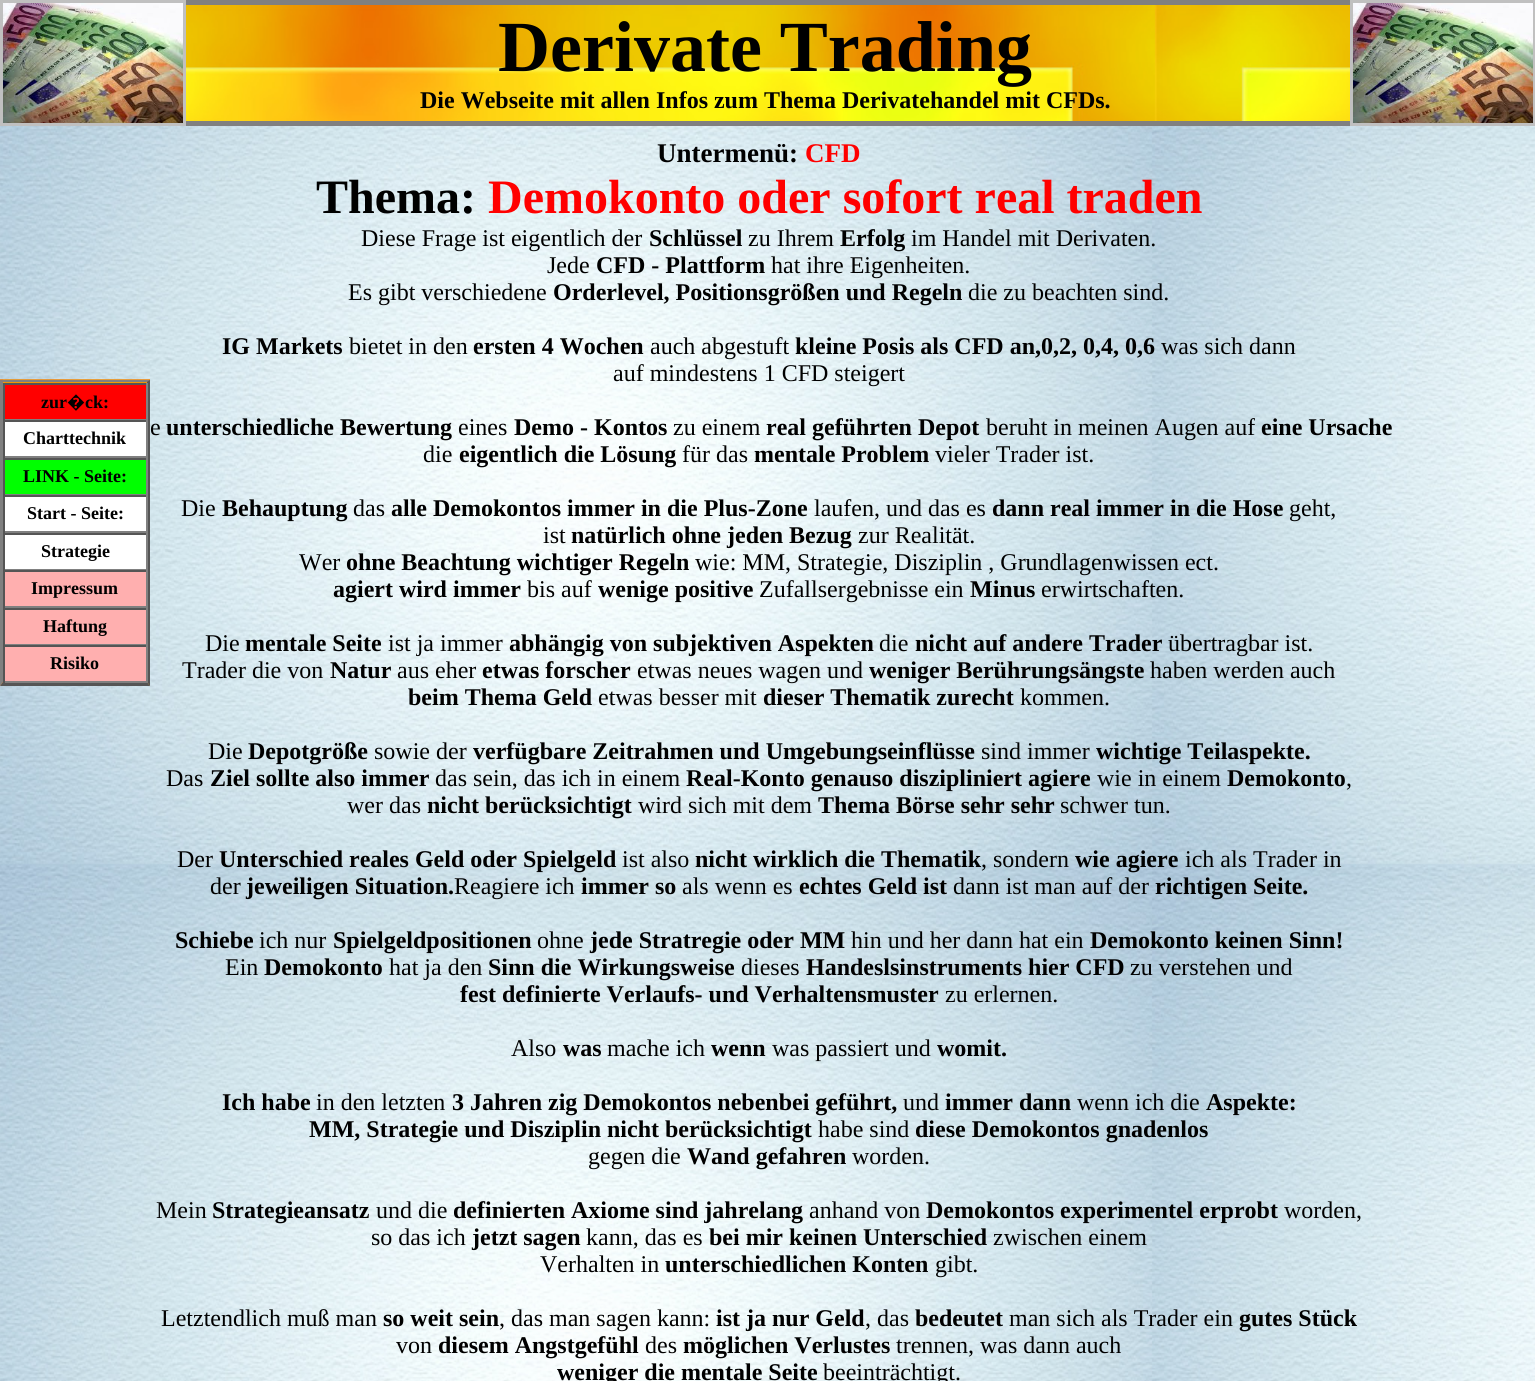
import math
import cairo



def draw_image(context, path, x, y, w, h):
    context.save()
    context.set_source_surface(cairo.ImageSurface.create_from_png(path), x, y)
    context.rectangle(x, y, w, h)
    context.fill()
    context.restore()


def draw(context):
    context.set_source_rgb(1, 1, 1)
    context.paint()
    draw_image(context, "images/1.png", 0, 126, 1535, 1255)
    draw_image(context, "images/3.png", 186, 5, 1164, 116)
    context.rectangle(1.5, 1.5, 1527, 123)
    context.set_source_rgb(128 / 255, 128 / 255, 128 / 255)
    context.set_line_width(3)
    context.stroke()
    context.rectangle(4, 4, 1522, 118)
    context.set_line_width(2)
    context.stroke()
    context.rectangle(1, 1, 184, 124)
    context.set_source_rgb(192 / 255, 192 / 255, 192 / 255)
    context.stroke()
    context.rectangle(3, 3, 181, 121)
    context.stroke()
    draw_image(context, "images/2.png", 3, 3, 180, 120)
    context.rectangle(1351, 1, 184, 124)
    context.stroke()
    context.rectangle(1353, 3, 181, 121)
    context.stroke()
    draw_image(context, "images/4.png", 1353, 3, 180, 120)
    draw_image(context, "images/5.png", 0, 379, 150, 1)
    draw_image(context, "images/6.png", 0, 379, 150, 307)
    context.set_source_rgb(128 / 255, 128 / 255, 128 / 255)
    context.new_path()
    context.move_to(0, 380)
    context.line_to(150, 380)
    context.line_to(147, 382)
    context.line_to(3, 382)
    context.close_path()
    context.fill()
    context.set_source_rgb(85 / 255, 85 / 255, 85 / 255)
    context.new_path()
    context.move_to(150, 380)
    context.line_to(150, 686)
    context.line_to(147, 682)
    context.line_to(147, 382)
    context.close_path()
    context.fill()
    context.new_path()
    context.move_to(150, 686)
    context.line_to(0, 686)
    context.line_to(3, 682)
    context.line_to(147, 682)
    context.close_path()
    context.fill()
    context.set_source_rgb(128 / 255, 128 / 255, 128 / 255)
    context.new_path()
    context.move_to(0, 686)
    context.line_to(0, 380)
    context.line_to(3, 382)
    context.line_to(3, 682)
    context.close_path()
    context.fill()
    context.set_source_rgb(1, 0, 0)
    context.rectangle(5, 385, 141, 34)
    context.fill()
    context.set_source_rgb(85 / 255, 85 / 255, 85 / 255)
    context.rectangle(3, 383, 144, 2)
    context.fill()
    context.set_source_rgb(128 / 255, 128 / 255, 128 / 255)
    context.rectangle(146, 383, 2, 37)
    context.fill()
    context.rectangle(3, 419, 144, 1)
    context.fill()
    context.set_source_rgb(85 / 255, 85 / 255, 85 / 255)
    context.rectangle(3, 383, 2, 37)
    context.fill()
    context.set_source_rgb(1, 1, 1)
    context.rectangle(5, 422, 141, 34)
    context.fill()
    context.set_source_rgb(85 / 255, 85 / 255, 85 / 255)
    context.rectangle(3, 420, 144, 2)
    context.fill()
    context.set_source_rgb(128 / 255, 128 / 255, 128 / 255)
    context.rectangle(146, 420, 2, 38)
    context.fill()
    context.rectangle(3, 456, 144, 2)
    context.fill()
    context.set_source_rgb(85 / 255, 85 / 255, 85 / 255)
    context.rectangle(3, 420, 2, 38)
    context.fill()
    context.set_source_rgb(0, 1, 0)
    context.rectangle(5, 460, 141, 34)
    context.fill()
    context.set_source_rgb(85 / 255, 85 / 255, 85 / 255)
    context.rectangle(3, 458, 144, 2)
    context.fill()
    context.set_source_rgb(128 / 255, 128 / 255, 128 / 255)
    context.rectangle(146, 458, 2, 37)
    context.fill()
    context.rectangle(3, 494, 144, 1)
    context.fill()
    context.set_source_rgb(85 / 255, 85 / 255, 85 / 255)
    context.rectangle(3, 458, 2, 37)
    context.fill()
    context.set_source_rgb(1, 1, 1)
    context.rectangle(5, 497, 141, 34)
    context.fill()
    context.set_source_rgb(85 / 255, 85 / 255, 85 / 255)
    context.rectangle(3, 495, 144, 2)
    context.fill()
    context.set_source_rgb(128 / 255, 128 / 255, 128 / 255)
    context.rectangle(146, 495, 2, 38)
    context.fill()
    context.rectangle(3, 531, 144, 2)
    context.fill()
    context.set_source_rgb(85 / 255, 85 / 255, 85 / 255)
    context.rectangle(3, 495, 2, 38)
    context.fill()
    context.set_source_rgb(1, 1, 1)
    context.rectangle(5, 535, 141, 34)
    context.fill()
    context.set_source_rgb(85 / 255, 85 / 255, 85 / 255)
    context.rectangle(3, 533, 144, 2)
    context.fill()
    context.set_source_rgb(128 / 255, 128 / 255, 128 / 255)
    context.rectangle(146, 533, 2, 37)
    context.fill()
    context.rectangle(3, 569, 144, 1)
    context.fill()
    context.set_source_rgb(85 / 255, 85 / 255, 85 / 255)
    context.rectangle(3, 533, 2, 37)
    context.fill()
    context.set_source_rgb(1, 175 / 255, 175 / 255)
    context.rectangle(5, 572, 141, 34)
    context.fill()
    context.set_source_rgb(85 / 255, 85 / 255, 85 / 255)
    context.rectangle(3, 570, 144, 2)
    context.fill()
    context.set_source_rgb(128 / 255, 128 / 255, 128 / 255)
    context.rectangle(146, 570, 2, 38)
    context.fill()
    context.rectangle(3, 606, 144, 2)
    context.fill()
    context.set_source_rgb(85 / 255, 85 / 255, 85 / 255)
    context.rectangle(3, 570, 2, 38)
    context.fill()
    context.set_source_rgb(1, 175 / 255, 175 / 255)
    context.rectangle(5, 610, 141, 34)
    context.fill()
    context.set_source_rgb(85 / 255, 85 / 255, 85 / 255)
    context.rectangle(3, 608, 144, 2)
    context.fill()
    context.set_source_rgb(128 / 255, 128 / 255, 128 / 255)
    context.rectangle(146, 608, 2, 37)
    context.fill()
    context.rectangle(3, 644, 144, 1)
    context.fill()
    context.set_source_rgb(85 / 255, 85 / 255, 85 / 255)
    context.rectangle(3, 608, 2, 37)
    context.fill()
    context.set_source_rgb(1, 175 / 255, 175 / 255)
    context.rectangle(5, 647, 141, 34)
    context.fill()
    context.set_source_rgb(85 / 255, 85 / 255, 85 / 255)
    context.rectangle(3, 645, 144, 2)
    context.fill()
    context.set_source_rgb(128 / 255, 128 / 255, 128 / 255)
    context.rectangle(146, 645, 2, 38)
    context.fill()
    context.rectangle(3, 681, 144, 2)
    context.fill()
    context.set_source_rgb(85 / 255, 85 / 255, 85 / 255)
    context.rectangle(3, 645, 2, 38)
    context.fill()
    context.select_font_face("Liberation Serif", cairo.FontSlant.NORMAL, cairo.FontWeight.BOLD)
    context.set_font_size(72)
    context.set_source_rgb(0, 0, 0)
    context.move_to(498, 71)
    context.show_text("Derivate Trading")
    context.set_font_size(24)
    context.move_to(420, 108)
    context.show_text("Die Webseite mit allen Infos zum Thema Derivatehandel mit CFDs.")
    context.set_font_size(18)
    context.move_to(41, 408)
    context.show_text("zur")
    context.select_font_face("Noto Sans", cairo.FontSlant.NORMAL, cairo.FontWeight.BOLD)
    context.move_to(67, 408)
    context.show_text("�")
    context.select_font_face("Liberation Serif", cairo.FontSlant.NORMAL, cairo.FontWeight.BOLD)
    context.move_to(85, 408)
    context.show_text("ck:")
    context.move_to(23, 444)
    context.show_text("Charttechnik")
    context.move_to(23, 482)
    context.show_text("LINK - Seite:")
    context.move_to(27, 519)
    context.show_text("Start - Seite:")
    context.move_to(41, 557)
    context.show_text("Strategie")
    context.move_to(31, 594)
    context.show_text("Impressum")
    context.move_to(43, 632)
    context.show_text("Haftung")
    context.move_to(50, 669)
    context.show_text("Risiko")
    context.set_font_size(27)
    context.move_to(657, 162)
    context.show_text("Untermenü:")
    context.set_source_rgb(1, 0, 0)
    context.move_to(805, 162)
    context.show_text("CFD")
    context.set_font_size(48)
    context.set_source_rgb(0, 0, 0)
    context.move_to(316, 213)
    context.show_text("Thema:")
    context.set_source_rgb(1, 0, 0)
    context.move_to(488, 213)
    context.show_text("Demokonto oder sofort real traden")
    context.select_font_face("Liberation Serif")
    context.set_font_size(24)
    context.set_source_rgb(0, 0, 0)
    context.move_to(361, 246)
    context.show_text("Diese Frage ist eigentlich der")
    context.select_font_face("Liberation Serif", cairo.FontSlant.NORMAL, cairo.FontWeight.BOLD)
    context.move_to(649, 246)
    context.show_text("Schlüssel")
    context.select_font_face("Liberation Serif")
    context.move_to(748, 246)
    context.show_text("zu Ihrem")
    context.select_font_face("Liberation Serif", cairo.FontSlant.NORMAL, cairo.FontWeight.BOLD)
    context.move_to(840, 246)
    context.show_text("Erfolg")
    context.select_font_face("Liberation Serif")
    context.move_to(911, 246)
    context.show_text("im Handel mit Derivaten.")
    context.move_to(547, 273)
    context.show_text("Jede")
    context.select_font_face("Liberation Serif", cairo.FontSlant.NORMAL, cairo.FontWeight.BOLD)
    context.move_to(596, 273)
    context.show_text("CFD - Plattform")
    context.select_font_face("Liberation Serif")
    context.move_to(771, 273)
    context.show_text("hat ihre Eigenheiten.")
    context.move_to(348, 300)
    context.show_text("Es gibt verschiedene")
    context.select_font_face("Liberation Serif", cairo.FontSlant.NORMAL, cairo.FontWeight.BOLD)
    context.move_to(553, 300)
    context.show_text("Orderlevel, Positionsgrößen und Regeln")
    context.select_font_face("Liberation Serif")
    context.move_to(968, 300)
    context.show_text("die zu beachten sind.")
    context.select_font_face("Liberation Serif", cairo.FontSlant.NORMAL, cairo.FontWeight.BOLD)
    context.move_to(222, 354)
    context.show_text("IG Markets")
    context.select_font_face("Liberation Serif")
    context.move_to(349, 354)
    context.show_text("bietet in den")
    context.select_font_face("Liberation Serif", cairo.FontSlant.NORMAL, cairo.FontWeight.BOLD)
    context.move_to(473, 354)
    context.show_text("ersten 4 Wochen")
    context.select_font_face("Liberation Serif")
    context.move_to(650, 354)
    context.show_text("auch abgestuft")
    context.select_font_face("Liberation Serif", cairo.FontSlant.NORMAL, cairo.FontWeight.BOLD)
    context.move_to(795, 354)
    context.show_text("kleine Posis als CFD an,0,2, 0,4, 0,6")
    context.select_font_face("Liberation Serif")
    context.move_to(1161, 354)
    context.show_text("was sich dann")
    context.move_to(613, 381)
    context.show_text("auf mindestens 1 CFD steigert")
    context.move_to(150, 435)
    context.show_text("e")
    context.select_font_face("Liberation Serif", cairo.FontSlant.NORMAL, cairo.FontWeight.BOLD)
    context.move_to(166, 435)
    context.show_text("unterschiedliche Bewertung")
    context.select_font_face("Liberation Serif")
    context.move_to(458, 435)
    context.show_text("eines")
    context.select_font_face("Liberation Serif", cairo.FontSlant.NORMAL, cairo.FontWeight.BOLD)
    context.move_to(514, 435)
    context.show_text("Demo - Kontos")
    context.select_font_face("Liberation Serif")
    context.move_to(673, 435)
    context.show_text("zu einem")
    context.select_font_face("Liberation Serif", cairo.FontSlant.NORMAL, cairo.FontWeight.BOLD)
    context.move_to(766, 435)
    context.show_text("real geführten Depot")
    context.select_font_face("Liberation Serif")
    context.move_to(986, 435)
    context.show_text("beruht in meinen Augen auf")
    context.select_font_face("Liberation Serif", cairo.FontSlant.NORMAL, cairo.FontWeight.BOLD)
    context.move_to(1261, 435)
    context.show_text("eine Ursache")
    context.select_font_face("Liberation Serif")
    context.move_to(423, 462)
    context.show_text("die")
    context.select_font_face("Liberation Serif", cairo.FontSlant.NORMAL, cairo.FontWeight.BOLD)
    context.move_to(459, 462)
    context.show_text("eigentlich die Lösung")
    context.select_font_face("Liberation Serif")
    context.move_to(682, 462)
    context.show_text("für das")
    context.select_font_face("Liberation Serif", cairo.FontSlant.NORMAL, cairo.FontWeight.BOLD)
    context.move_to(754, 462)
    context.show_text("mentale Problem")
    context.select_font_face("Liberation Serif")
    context.move_to(935, 462)
    context.show_text("vieler Trader ist.")
    context.move_to(181, 516)
    context.show_text("Die")
    context.select_font_face("Liberation Serif", cairo.FontSlant.NORMAL, cairo.FontWeight.BOLD)
    context.move_to(222, 516)
    context.show_text("Behauptung")
    context.select_font_face("Liberation Serif")
    context.move_to(353, 516)
    context.show_text("das")
    context.select_font_face("Liberation Serif", cairo.FontSlant.NORMAL, cairo.FontWeight.BOLD)
    context.move_to(391, 516)
    context.show_text("alle Demokontos immer in die Plus-Zone")
    context.select_font_face("Liberation Serif")
    context.move_to(814, 516)
    context.show_text("laufen, und das es")
    context.select_font_face("Liberation Serif", cairo.FontSlant.NORMAL, cairo.FontWeight.BOLD)
    context.move_to(992, 516)
    context.show_text("dann real immer in die Hose")
    context.select_font_face("Liberation Serif")
    context.move_to(1289, 516)
    context.show_text("geht,")
    context.move_to(543, 543)
    context.show_text("ist")
    context.select_font_face("Liberation Serif", cairo.FontSlant.NORMAL, cairo.FontWeight.BOLD)
    context.move_to(571, 543)
    context.show_text("natürlich ohne jeden Bezug")
    context.select_font_face("Liberation Serif")
    context.move_to(858, 543)
    context.show_text("zur Realität.")
    context.move_to(299, 570)
    context.show_text("Wer")
    context.select_font_face("Liberation Serif", cairo.FontSlant.NORMAL, cairo.FontWeight.BOLD)
    context.move_to(346, 570)
    context.show_text("ohne Beachtung wichtiger Regeln")
    context.select_font_face("Liberation Serif")
    context.move_to(695, 570)
    context.show_text("wie: MM, Strategie, Disziplin , Grundlagenwissen ect.")
    context.select_font_face("Liberation Serif", cairo.FontSlant.NORMAL, cairo.FontWeight.BOLD)
    context.move_to(333, 597)
    context.show_text("agiert wird immer")
    context.select_font_face("Liberation Serif")
    context.move_to(527, 597)
    context.show_text("bis auf")
    context.select_font_face("Liberation Serif", cairo.FontSlant.NORMAL, cairo.FontWeight.BOLD)
    context.move_to(598, 597)
    context.show_text("wenige positive")
    context.select_font_face("Liberation Serif")
    context.move_to(759, 597)
    context.show_text("Zufallsergebnisse ein")
    context.select_font_face("Liberation Serif", cairo.FontSlant.NORMAL, cairo.FontWeight.BOLD)
    context.move_to(970, 597)
    context.show_text("Minus")
    context.select_font_face("Liberation Serif")
    context.move_to(1041, 597)
    context.show_text("erwirtschaften.")
    context.move_to(205, 651)
    context.show_text("Die")
    context.select_font_face("Liberation Serif", cairo.FontSlant.NORMAL, cairo.FontWeight.BOLD)
    context.move_to(245, 651)
    context.show_text("mentale Seite")
    context.select_font_face("Liberation Serif")
    context.move_to(388, 651)
    context.show_text("ist ja immer")
    context.select_font_face("Liberation Serif", cairo.FontSlant.NORMAL, cairo.FontWeight.BOLD)
    context.move_to(509, 651)
    context.show_text("abhängig von subjektiven Aspekten")
    context.select_font_face("Liberation Serif")
    context.move_to(879, 651)
    context.show_text("die")
    context.select_font_face("Liberation Serif", cairo.FontSlant.NORMAL, cairo.FontWeight.BOLD)
    context.move_to(915, 651)
    context.show_text("nicht auf andere Trader")
    context.select_font_face("Liberation Serif")
    context.move_to(1168, 651)
    context.show_text("übertragbar ist.")
    context.move_to(182, 678)
    context.show_text("Trader die von")
    context.select_font_face("Liberation Serif", cairo.FontSlant.NORMAL, cairo.FontWeight.BOLD)
    context.move_to(330, 678)
    context.show_text("Natur")
    context.select_font_face("Liberation Serif")
    context.move_to(397, 678)
    context.show_text("aus eher")
    context.select_font_face("Liberation Serif", cairo.FontSlant.NORMAL, cairo.FontWeight.BOLD)
    context.move_to(482, 678)
    context.show_text("etwas forscher")
    context.select_font_face("Liberation Serif")
    context.move_to(637, 678)
    context.show_text("etwas neues wagen und")
    context.select_font_face("Liberation Serif", cairo.FontSlant.NORMAL, cairo.FontWeight.BOLD)
    context.move_to(869, 678)
    context.show_text("weniger Berührungsängste")
    context.select_font_face("Liberation Serif")
    context.move_to(1150, 678)
    context.show_text("haben werden auch")
    context.select_font_face("Liberation Serif", cairo.FontSlant.NORMAL, cairo.FontWeight.BOLD)
    context.move_to(408, 705)
    context.show_text("beim Thema Geld")
    context.select_font_face("Liberation Serif")
    context.move_to(598, 705)
    context.show_text("etwas besser mit")
    context.select_font_face("Liberation Serif", cairo.FontSlant.NORMAL, cairo.FontWeight.BOLD)
    context.move_to(763, 705)
    context.show_text("dieser Thematik zurecht")
    context.select_font_face("Liberation Serif")
    context.move_to(1020, 705)
    context.show_text("kommen.")
    context.move_to(208, 759)
    context.show_text("Die")
    context.select_font_face("Liberation Serif", cairo.FontSlant.NORMAL, cairo.FontWeight.BOLD)
    context.move_to(248, 759)
    context.show_text("Depotgröße")
    context.select_font_face("Liberation Serif")
    context.move_to(374, 759)
    context.show_text("sowie der")
    context.select_font_face("Liberation Serif", cairo.FontSlant.NORMAL, cairo.FontWeight.BOLD)
    context.move_to(473, 759)
    context.show_text("verfügbare Zeitrahmen und Umgebungseinflüsse")
    context.select_font_face("Liberation Serif")
    context.move_to(981, 759)
    context.show_text("sind immer")
    context.select_font_face("Liberation Serif", cairo.FontSlant.NORMAL, cairo.FontWeight.BOLD)
    context.move_to(1096, 759)
    context.show_text("wichtige Teilaspekte.")
    context.select_font_face("Liberation Serif")
    context.move_to(166, 786)
    context.show_text("Das")
    context.select_font_face("Liberation Serif", cairo.FontSlant.NORMAL, cairo.FontWeight.BOLD)
    context.move_to(210, 786)
    context.show_text("Ziel sollte also immer")
    context.select_font_face("Liberation Serif")
    context.move_to(435, 786)
    context.show_text("das sein, das ich in einem")
    context.select_font_face("Liberation Serif", cairo.FontSlant.NORMAL, cairo.FontWeight.BOLD)
    context.move_to(686, 786)
    context.show_text("Real-Konto genauso diszipliniert agiere")
    context.select_font_face("Liberation Serif")
    context.move_to(1097, 786)
    context.show_text("wie in einem")
    context.select_font_face("Liberation Serif", cairo.FontSlant.NORMAL, cairo.FontWeight.BOLD)
    context.move_to(1227, 786)
    context.show_text("Demokonto")
    context.select_font_face("Liberation Serif")
    context.move_to(1346, 786)
    context.show_text(",")
    context.move_to(347, 813)
    context.show_text("wer das")
    context.select_font_face("Liberation Serif", cairo.FontSlant.NORMAL, cairo.FontWeight.BOLD)
    context.move_to(427, 813)
    context.show_text("nicht berücksichtigt")
    context.select_font_face("Liberation Serif")
    context.move_to(638, 813)
    context.show_text("wird sich mit dem")
    context.select_font_face("Liberation Serif", cairo.FontSlant.NORMAL, cairo.FontWeight.BOLD)
    context.move_to(818, 813)
    context.show_text("Thema Börse sehr sehr")
    context.select_font_face("Liberation Serif")
    context.move_to(1060, 813)
    context.show_text("schwer tun.")
    context.move_to(177, 867)
    context.show_text("Der")
    context.select_font_face("Liberation Serif", cairo.FontSlant.NORMAL, cairo.FontWeight.BOLD)
    context.move_to(219, 867)
    context.show_text("Unterschied reales Geld oder Spielgeld")
    context.select_font_face("Liberation Serif")
    context.move_to(622, 867)
    context.show_text("ist also")
    context.select_font_face("Liberation Serif", cairo.FontSlant.NORMAL, cairo.FontWeight.BOLD)
    context.move_to(695, 867)
    context.show_text("nicht wirklich die Thematik")
    context.select_font_face("Liberation Serif")
    context.move_to(981, 867)
    context.show_text(", sondern")
    context.select_font_face("Liberation Serif", cairo.FontSlant.NORMAL, cairo.FontWeight.BOLD)
    context.move_to(1075, 867)
    context.show_text("wie agiere")
    context.select_font_face("Liberation Serif")
    context.move_to(1185, 867)
    context.show_text("ich als Trader in")
    context.move_to(210, 894)
    context.show_text("der")
    context.select_font_face("Liberation Serif", cairo.FontSlant.NORMAL, cairo.FontWeight.BOLD)
    context.move_to(246, 894)
    context.show_text("jeweiligen Situation.")
    context.select_font_face("Liberation Serif")
    context.move_to(454, 894)
    context.show_text("Reagiere ich")
    context.select_font_face("Liberation Serif", cairo.FontSlant.NORMAL, cairo.FontWeight.BOLD)
    context.move_to(581, 894)
    context.show_text("immer so")
    context.select_font_face("Liberation Serif")
    context.move_to(682, 894)
    context.show_text("als wenn es")
    context.select_font_face("Liberation Serif", cairo.FontSlant.NORMAL, cairo.FontWeight.BOLD)
    context.move_to(799, 894)
    context.show_text("echtes Geld ist")
    context.select_font_face("Liberation Serif")
    context.move_to(953, 894)
    context.show_text("dann ist man auf der")
    context.select_font_face("Liberation Serif", cairo.FontSlant.NORMAL, cairo.FontWeight.BOLD)
    context.move_to(1155, 894)
    context.show_text("richtigen Seite.")
    context.move_to(175, 948)
    context.show_text("Schiebe")
    context.select_font_face("Liberation Serif")
    context.move_to(259, 948)
    context.show_text("ich nur")
    context.select_font_face("Liberation Serif", cairo.FontSlant.NORMAL, cairo.FontWeight.BOLD)
    context.move_to(333, 948)
    context.show_text("Spielgeldpositionen")
    context.select_font_face("Liberation Serif")
    context.move_to(537, 948)
    context.show_text("ohne")
    context.select_font_face("Liberation Serif", cairo.FontSlant.NORMAL, cairo.FontWeight.BOLD)
    context.move_to(590, 948)
    context.show_text("jede Stratregie oder MM")
    context.select_font_face("Liberation Serif")
    context.move_to(851, 948)
    context.show_text("hin und her dann hat ein")
    context.select_font_face("Liberation Serif", cairo.FontSlant.NORMAL, cairo.FontWeight.BOLD)
    context.move_to(1090, 948)
    context.show_text("Demokonto keinen Sinn!")
    context.select_font_face("Liberation Serif")
    context.move_to(225, 975)
    context.show_text("Ein")
    context.select_font_face("Liberation Serif", cairo.FontSlant.NORMAL, cairo.FontWeight.BOLD)
    context.move_to(264, 975)
    context.show_text("Demokonto")
    context.select_font_face("Liberation Serif")
    context.move_to(389, 975)
    context.show_text("hat ja den")
    context.select_font_face("Liberation Serif", cairo.FontSlant.NORMAL, cairo.FontWeight.BOLD)
    context.move_to(488, 975)
    context.show_text("Sinn die Wirkungsweise")
    context.select_font_face("Liberation Serif")
    context.move_to(741, 975)
    context.show_text("dieses")
    context.select_font_face("Liberation Serif", cairo.FontSlant.NORMAL, cairo.FontWeight.BOLD)
    context.move_to(806, 975)
    context.show_text("Handeslsinstruments hier CFD")
    context.select_font_face("Liberation Serif")
    context.move_to(1130, 975)
    context.show_text("zu verstehen und")
    context.select_font_face("Liberation Serif", cairo.FontSlant.NORMAL, cairo.FontWeight.BOLD)
    context.move_to(460, 1002)
    context.show_text("fest definierte Verlaufs- und Verhaltensmuster")
    context.select_font_face("Liberation Serif")
    context.move_to(945, 1002)
    context.show_text("zu erlernen.")
    context.move_to(511, 1056)
    context.show_text("Also")
    context.select_font_face("Liberation Serif", cairo.FontSlant.NORMAL, cairo.FontWeight.BOLD)
    context.move_to(563, 1056)
    context.show_text("was")
    context.select_font_face("Liberation Serif")
    context.move_to(607, 1056)
    context.show_text("mache ich")
    context.select_font_face("Liberation Serif", cairo.FontSlant.NORMAL, cairo.FontWeight.BOLD)
    context.move_to(711, 1056)
    context.show_text("wenn")
    context.select_font_face("Liberation Serif")
    context.move_to(772, 1056)
    context.show_text("was passiert und")
    context.select_font_face("Liberation Serif", cairo.FontSlant.NORMAL, cairo.FontWeight.BOLD)
    context.move_to(937, 1056)
    context.show_text("womit.")
    context.move_to(222, 1110)
    context.show_text("Ich habe")
    context.select_font_face("Liberation Serif")
    context.move_to(316, 1110)
    context.show_text("in den letzten")
    context.select_font_face("Liberation Serif", cairo.FontSlant.NORMAL, cairo.FontWeight.BOLD)
    context.move_to(452, 1110)
    context.show_text("3 Jahren zig Demokontos nebenbei geführt,")
    context.select_font_face("Liberation Serif")
    context.move_to(903, 1110)
    context.show_text("und")
    context.select_font_face("Liberation Serif", cairo.FontSlant.NORMAL, cairo.FontWeight.BOLD)
    context.move_to(945, 1110)
    context.show_text("immer dann")
    context.select_font_face("Liberation Serif")
    context.move_to(1077, 1110)
    context.show_text("wenn ich die")
    context.select_font_face("Liberation Serif", cairo.FontSlant.NORMAL, cairo.FontWeight.BOLD)
    context.move_to(1206, 1110)
    context.show_text("Aspekte:")
    context.move_to(309, 1137)
    context.show_text("MM, Strategie und Disziplin nicht berücksichtigt")
    context.select_font_face("Liberation Serif")
    context.move_to(818, 1137)
    context.show_text("habe sind")
    context.select_font_face("Liberation Serif", cairo.FontSlant.NORMAL, cairo.FontWeight.BOLD)
    context.move_to(915, 1137)
    context.show_text("diese Demokontos gnadenlos")
    context.select_font_face("Liberation Serif")
    context.move_to(588, 1164)
    context.show_text("gegen die")
    context.select_font_face("Liberation Serif", cairo.FontSlant.NORMAL, cairo.FontWeight.BOLD)
    context.move_to(687, 1164)
    context.show_text("Wand gefahren")
    context.select_font_face("Liberation Serif")
    context.move_to(852, 1164)
    context.show_text("worden.")
    context.move_to(156, 1218)
    context.show_text("Mein")
    context.select_font_face("Liberation Serif", cairo.FontSlant.NORMAL, cairo.FontWeight.BOLD)
    context.move_to(212, 1218)
    context.show_text("Strategieansatz")
    context.select_font_face("Liberation Serif")
    context.move_to(376, 1218)
    context.show_text("und die")
    context.select_font_face("Liberation Serif", cairo.FontSlant.NORMAL, cairo.FontWeight.BOLD)
    context.move_to(453, 1218)
    context.show_text("definierten Axiome sind jahrelang")
    context.select_font_face("Liberation Serif")
    context.move_to(809, 1218)
    context.show_text("anhand von")
    context.select_font_face("Liberation Serif", cairo.FontSlant.NORMAL, cairo.FontWeight.BOLD)
    context.move_to(926, 1218)
    context.show_text("Demokontos experimentel erprobt")
    context.select_font_face("Liberation Serif")
    context.move_to(1284, 1218)
    context.show_text("worden,")
    context.move_to(371, 1245)
    context.show_text("so das ich")
    context.select_font_face("Liberation Serif", cairo.FontSlant.NORMAL, cairo.FontWeight.BOLD)
    context.move_to(472, 1245)
    context.show_text("jetzt sagen")
    context.select_font_face("Liberation Serif")
    context.move_to(586, 1245)
    context.show_text("kann, das es")
    context.select_font_face("Liberation Serif", cairo.FontSlant.NORMAL, cairo.FontWeight.BOLD)
    context.move_to(709, 1245)
    context.show_text("bei mir keinen Unterschied")
    context.select_font_face("Liberation Serif")
    context.move_to(993, 1245)
    context.show_text("zwischen einem")
    context.move_to(540, 1272)
    context.show_text("Verhalten in")
    context.select_font_face("Liberation Serif", cairo.FontSlant.NORMAL, cairo.FontWeight.BOLD)
    context.move_to(665, 1272)
    context.show_text("unterschiedlichen Konten")
    context.select_font_face("Liberation Serif")
    context.move_to(935, 1272)
    context.show_text("gibt.")
    context.move_to(161, 1326)
    context.show_text("Letztendlich muß man")
    context.select_font_face("Liberation Serif", cairo.FontSlant.NORMAL, cairo.FontWeight.BOLD)
    context.move_to(383, 1326)
    context.show_text("so weit sein")
    context.select_font_face("Liberation Serif")
    context.move_to(499, 1326)
    context.show_text(", das man sagen kann:")
    context.select_font_face("Liberation Serif", cairo.FontSlant.NORMAL, cairo.FontWeight.BOLD)
    context.move_to(716, 1326)
    context.show_text("ist ja nur Geld")
    context.select_font_face("Liberation Serif")
    context.move_to(865, 1326)
    context.show_text(", das")
    context.select_font_face("Liberation Serif", cairo.FontSlant.NORMAL, cairo.FontWeight.BOLD)
    context.move_to(915, 1326)
    context.show_text("bedeutet")
    context.select_font_face("Liberation Serif")
    context.move_to(1009, 1326)
    context.show_text("man sich als Trader ein")
    context.select_font_face("Liberation Serif", cairo.FontSlant.NORMAL, cairo.FontWeight.BOLD)
    context.move_to(1239, 1326)
    context.show_text("gutes Stück")
    context.select_font_face("Liberation Serif")
    context.move_to(396, 1353)
    context.show_text("von")
    context.select_font_face("Liberation Serif", cairo.FontSlant.NORMAL, cairo.FontWeight.BOLD)
    context.move_to(438, 1353)
    context.show_text("diesem Angstgefühl")
    context.select_font_face("Liberation Serif")
    context.move_to(645, 1353)
    context.show_text("des")
    context.select_font_face("Liberation Serif", cairo.FontSlant.NORMAL, cairo.FontWeight.BOLD)
    context.move_to(683, 1353)
    context.show_text("möglichen Verlustes")
    context.select_font_face("Liberation Serif")
    context.move_to(896, 1353)
    context.show_text("trennen, was dann auch")
    context.select_font_face("Liberation Serif", cairo.FontSlant.NORMAL, cairo.FontWeight.BOLD)
    context.move_to(557, 1380)
    context.show_text("weniger die mentale Seite")
    context.select_font_face("Liberation Serif")
    context.move_to(823, 1380)
    context.show_text("beeinträchtigt.")


surface = cairo.ImageSurface(cairo.Format.RGB24, 1535, 1381)
context = cairo.Context(surface)
options = cairo.FontOptions()
options.set_hint_metrics(cairo.HintMetrics.OFF)
options.set_hint_style(cairo.HintStyle.NONE)
context.set_font_options(options)
context.set_miter_limit(4)
draw(context)
surface.write_to_png("out.png")
